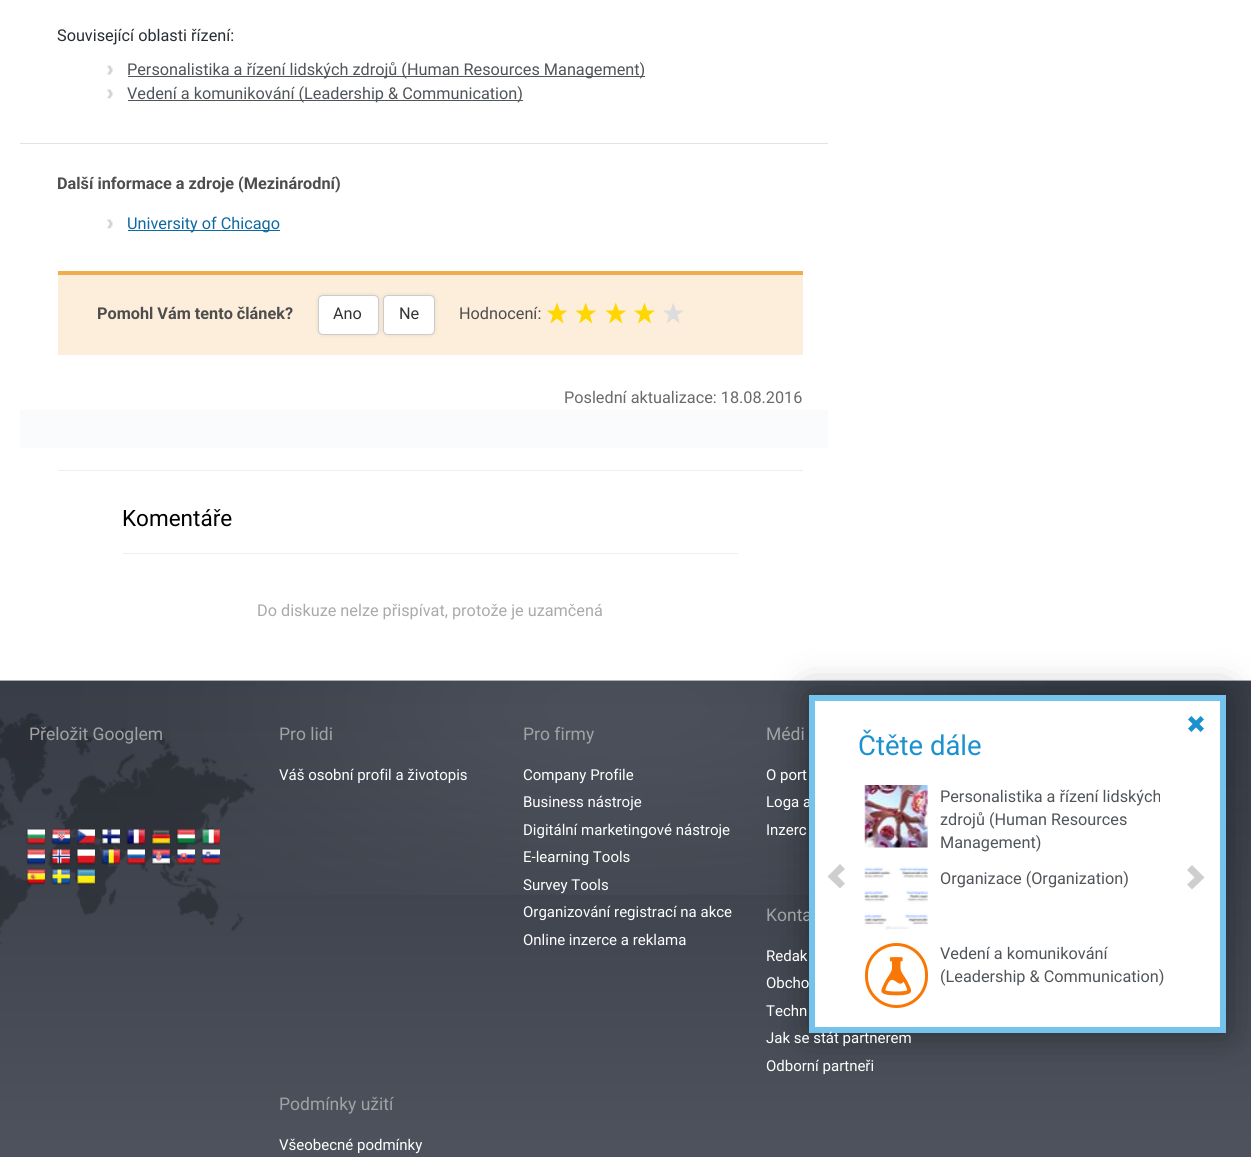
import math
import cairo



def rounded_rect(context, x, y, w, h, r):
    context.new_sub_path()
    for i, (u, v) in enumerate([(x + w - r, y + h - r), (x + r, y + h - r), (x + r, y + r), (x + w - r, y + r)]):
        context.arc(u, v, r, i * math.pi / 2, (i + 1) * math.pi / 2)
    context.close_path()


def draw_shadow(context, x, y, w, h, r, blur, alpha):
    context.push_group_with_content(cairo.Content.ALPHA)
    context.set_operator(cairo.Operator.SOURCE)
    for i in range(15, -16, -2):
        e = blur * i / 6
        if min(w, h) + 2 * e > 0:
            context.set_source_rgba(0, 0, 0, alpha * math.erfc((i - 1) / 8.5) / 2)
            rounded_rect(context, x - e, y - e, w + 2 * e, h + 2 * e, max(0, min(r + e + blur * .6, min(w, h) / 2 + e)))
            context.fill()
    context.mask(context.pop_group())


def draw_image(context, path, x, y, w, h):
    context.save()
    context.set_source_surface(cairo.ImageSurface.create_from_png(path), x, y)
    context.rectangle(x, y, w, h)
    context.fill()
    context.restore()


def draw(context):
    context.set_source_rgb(1, 1, 1)
    context.paint()
    draw_image(context, "images/1.png", 107, 65, 6, 10)
    context.set_source_rgb(80 / 255, 85 / 255, 90 / 255)
    context.rectangle(128, 76, 517, 1)
    context.fill()
    draw_image(context, "images/2.png", 107, 89, 6, 10)
    context.rectangle(128, 100, 395, 1)
    context.fill()
    draw_image(context, "images/11.png", 0, 680, 1251, 477)
    draw_image(context, "images/12.png", 0, 680, 1251, 215)
    context.set_source_rgb(0, 0, 0)
    draw_shadow(context, 809, 695, 417, 338, 0, 19, 0.4)
    context.set_source_rgb(224 / 255, 226 / 255, 228 / 255)
    context.rectangle(20, 143, 808, 1)
    context.fill()
    draw_image(context, "images/2.png", 107, 219, 6, 10)
    context.set_source_rgb(15 / 255, 105 / 255, 160 / 255)
    context.rectangle(128, 230, 152, 1)
    context.fill()
    context.set_source_rgb(252 / 255, 238 / 255, 219 / 255)
    context.rectangle(58, 275, 745, 80)
    context.fill()
    context.set_source_rgb(240 / 255, 173 / 255, 78 / 255)
    context.rectangle(58, 271, 745, 4)
    context.fill()
    context.set_source_rgb(0, 0, 0)
    draw_shadow(context, 318, 295, 61, 40, 5, 2, 0.1)
    context.set_source_rgb(1, 1, 1)
    rounded_rect(context, 318.5, 295.5, 60, 39, 4.5)
    context.fill_preserve()
    context.set_source_rgb(204 / 255, 204 / 255, 204 / 255)
    context.set_line_width(1)
    context.stroke()
    context.set_source_rgb(0, 0, 0)
    draw_shadow(context, 383, 295, 52, 40, 5, 2, 0.1)
    context.set_source_rgb(1, 1, 1)
    rounded_rect(context, 383.5, 295.5, 51, 39, 4.5)
    context.fill_preserve()
    context.set_source_rgb(204 / 255, 204 / 255, 204 / 255)
    context.stroke()
    draw_image(context, "images/7.png", 546, 302, 22, 22)
    draw_image(context, "images/8.png", 575, 302, 22, 22)
    draw_image(context, "images/8.png", 605, 302, 22, 22)
    draw_image(context, "images/9.png", 634, 302, 21, 22)
    draw_image(context, "images/10.png", 663, 303, 21, 21)
    context.set_source_rgb(250 / 255, 251 / 255, 252 / 255)
    context.rectangle(20, 410, 808, 38)
    context.fill()
    context.set_source_rgb(238 / 255, 238 / 255, 238 / 255)
    context.rectangle(58, 470, 745, 1)
    context.fill()
    context.rectangle(123, 553, 615, 1)
    context.fill()
    draw_image(context, "images/13.png", 0, 713, 255, 232)
    draw_image(context, "images/14.png", 26, 828, 19, 17)
    draw_image(context, "images/15.png", 51, 828, 19, 17)
    draw_image(context, "images/16.png", 76, 828, 19, 17)
    draw_image(context, "images/17.png", 101, 829, 19, 16)
    draw_image(context, "images/18.png", 126, 829, 19, 16)
    draw_image(context, "images/19.png", 151, 829, 19, 16)
    draw_image(context, "images/20.png", 176, 829, 19, 16)
    draw_image(context, "images/21.png", 201, 828, 19, 17)
    draw_image(context, "images/22.png", 26, 848, 19, 17)
    draw_image(context, "images/23.png", 51, 849, 19, 16)
    draw_image(context, "images/24.png", 76, 849, 19, 16)
    draw_image(context, "images/25.png", 101, 848, 19, 17)
    draw_image(context, "images/26.png", 126, 849, 19, 16)
    draw_image(context, "images/27.png", 151, 849, 19, 16)
    draw_image(context, "images/28.png", 176, 848, 19, 17)
    draw_image(context, "images/29.png", 201, 848, 19, 17)
    draw_image(context, "images/30.png", 26, 868, 19, 17)
    draw_image(context, "images/31.png", 51, 869, 19, 16)
    draw_image(context, "images/32.png", 76, 869, 19, 16)
    context.select_font_face("Roboto")
    context.set_font_size(16.25)
    context.set_source_rgb(40 / 255, 45 / 255, 50 / 255)
    context.move_to(57, 41)
    context.show_text("Související oblasti řízení:")
    context.set_source_rgb(80 / 255, 85 / 255, 90 / 255)
    context.move_to(127, 75)
    context.show_text("Personalistika a řízení lidských zdrojů (Human Resources Management)")
    context.move_to(127, 99)
    context.show_text("Vedení a komunikování (Leadership & Communication)")
    context.select_font_face("Roboto", cairo.FontSlant.NORMAL, cairo.FontWeight.BOLD)
    context.set_source_rgb(77 / 255, 77 / 255, 77 / 255)
    context.move_to(57, 189)
    context.show_text("Další informace a zdroje (Mezinárodní)")
    context.select_font_face("Roboto")
    context.set_source_rgb(15 / 255, 105 / 255, 160 / 255)
    context.move_to(127, 229)
    context.show_text("University of Chicago")
    context.select_font_face("Roboto", cairo.FontSlant.NORMAL, cairo.FontWeight.BOLD)
    context.set_source_rgb(77 / 255, 77 / 255, 77 / 255)
    context.move_to(97, 319)
    context.show_text("Pomohl Vám tento článek?")
    context.select_font_face("Roboto")
    context.set_source_rgb(51 / 255, 51 / 255, 51 / 255)
    context.move_to(333, 319)
    context.show_text("Ano")
    context.move_to(399, 319)
    context.show_text("Ne")
    context.set_source_rgb(77 / 255, 77 / 255, 77 / 255)
    context.move_to(459, 319)
    context.show_text("Hodnocení:")
    context.set_source_rgb(105 / 255, 105 / 255, 105 / 255)
    context.move_to(564, 403)
    context.show_text("Poslední aktualizace: 18.08.2016")
    context.set_font_size(22.5)
    context.set_source_rgb(0, 0, 0)
    context.move_to(122, 526)
    context.show_text("Komentáře")
    context.set_font_size(16.25)
    context.set_source_rgb(170 / 255, 170 / 255, 170 / 255)
    context.move_to(257, 616)
    context.show_text("Do diskuze nelze přispívat, protože je uzamčená")
    context.set_font_size(17.5)
    context.set_source_rgb(160 / 255, 162 / 255, 164 / 255)
    context.move_to(29, 740)
    context.show_text("Přeložit Googlem")
    context.move_to(279, 740)
    context.show_text("Pro lidi")
    context.set_font_size(15)
    context.set_source_rgb(1, 1, 1)
    context.move_to(279, 780)
    context.show_text("Váš osobní profil a životopis")
    context.set_font_size(17.5)
    context.set_source_rgb(160 / 255, 162 / 255, 164 / 255)
    context.move_to(523, 740)
    context.show_text("Pro firmy")
    context.set_font_size(15)
    context.set_source_rgb(1, 1, 1)
    context.move_to(523, 780)
    context.show_text("Company Profile")
    context.move_to(523, 807)
    context.show_text("Business nástroje")
    context.move_to(523, 835)
    context.show_text("Digitální marketingové nástroje")
    context.move_to(523, 862)
    context.show_text("E-learning Tools")
    context.move_to(523, 890)
    context.show_text("Survey Tools")
    context.move_to(523, 917)
    context.show_text("Organizování registrací na akce")
    context.move_to(523, 945)
    context.show_text("Online inzerce a reklama")
    context.set_font_size(17.5)
    context.set_source_rgb(160 / 255, 162 / 255, 164 / 255)
    context.move_to(766, 740)
    context.show_text("Médi")
    context.set_font_size(15)
    context.set_source_rgb(1, 1, 1)
    context.move_to(766, 780)
    context.show_text("O port")
    context.move_to(766, 807)
    context.show_text("Loga a")
    context.move_to(766, 835)
    context.show_text("Inzerc")
    context.set_font_size(17.5)
    context.set_source_rgb(160 / 255, 162 / 255, 164 / 255)
    context.move_to(766, 921)
    context.show_text("Konta")
    context.set_source_rgb(1, 1, 1)
    context.rectangle(812, 698, 411, 332)
    context.fill_preserve()
    context.set_source_rgb(115 / 255, 195 / 255, 237 / 255)
    context.set_line_width(6)
    context.stroke()
    draw_image(context, "images/3.png", 1188, 716, 16, 16)
    context.set_source_rgb(206 / 255, 206 / 255, 206 / 255)
    context.new_path()
    context.move_to(1187, 884.5)
    context.line_to(1194.5, 877.5)
    context.line_to(1187, 870)
    context.line_to(1192, 865)
    context.line_to(1204.5, 877.5)
    context.line_to(1192, 889.5)
    context.close_path()
    context.fill()
    context.new_path()
    context.move_to(827.5, 876.5)
    context.line_to(840, 888.5)
    context.line_to(845, 883.5)
    context.line_to(837.5, 876)
    context.line_to(845, 869)
    context.line_to(840, 864)
    context.close_path()
    context.fill()
    context.set_font_size(16.25)
    context.set_source_rgb(80 / 255, 85 / 255, 90 / 255)
    context.move_to(940, 982)
    context.show_text("(Leadership & Communication)")
    context.move_to(940, 959)
    context.show_text("Vedení a komunikování")
    rounded_rect(context, 866.5, 944.5, 60, 62, 30)
    context.set_source_rgb(249 / 255, 119 / 255, 4 / 255)
    context.set_line_width(3)
    context.stroke()
    draw_image(context, "images/6.png", 881, 957, 31, 39)
    context.set_source_rgb(80 / 255, 85 / 255, 90 / 255)
    context.move_to(940, 884)
    context.show_text("Organizace (Organization)")
    draw_image(context, "images/5.png", 864, 867, 64, 63)
    context.move_to(940, 848)
    context.show_text("Management)")
    context.move_to(940, 825)
    context.show_text("zdrojů (Human Resources")
    context.move_to(940, 802)
    context.show_text("Personalistika a řízení lidských")
    draw_image(context, "images/4.png", 864, 785, 64, 63)
    context.set_font_size(27.5)
    context.set_source_rgb(27 / 255, 145 / 255, 207 / 255)
    context.move_to(858, 755)
    context.show_text("Čtěte dále")
    context.set_font_size(15)
    context.set_source_rgb(1, 1, 1)
    context.move_to(766, 961)
    context.show_text("Redak")
    context.move_to(766, 988)
    context.show_text("Obcho")
    context.move_to(766, 1016)
    context.show_text("Techn")
    context.move_to(766, 1043)
    context.show_text("Jak se stát partnerem")
    context.move_to(766, 1071)
    context.show_text("Odborní partneři")
    context.set_font_size(17.5)
    context.set_source_rgb(160 / 255, 162 / 255, 164 / 255)
    context.move_to(279, 1110)
    context.show_text("Podmínky užití")
    context.set_font_size(15)
    context.set_source_rgb(1, 1, 1)
    context.move_to(279, 1150)
    context.show_text("Všeobecné podmínky")


surface = cairo.ImageSurface(cairo.Format.RGB24, 1251, 1157)
context = cairo.Context(surface)
options = cairo.FontOptions()
options.set_hint_metrics(cairo.HintMetrics.OFF)
options.set_hint_style(cairo.HintStyle.NONE)
context.set_font_options(options)
context.set_miter_limit(4)
draw(context)
surface.write_to_png("out.png")
